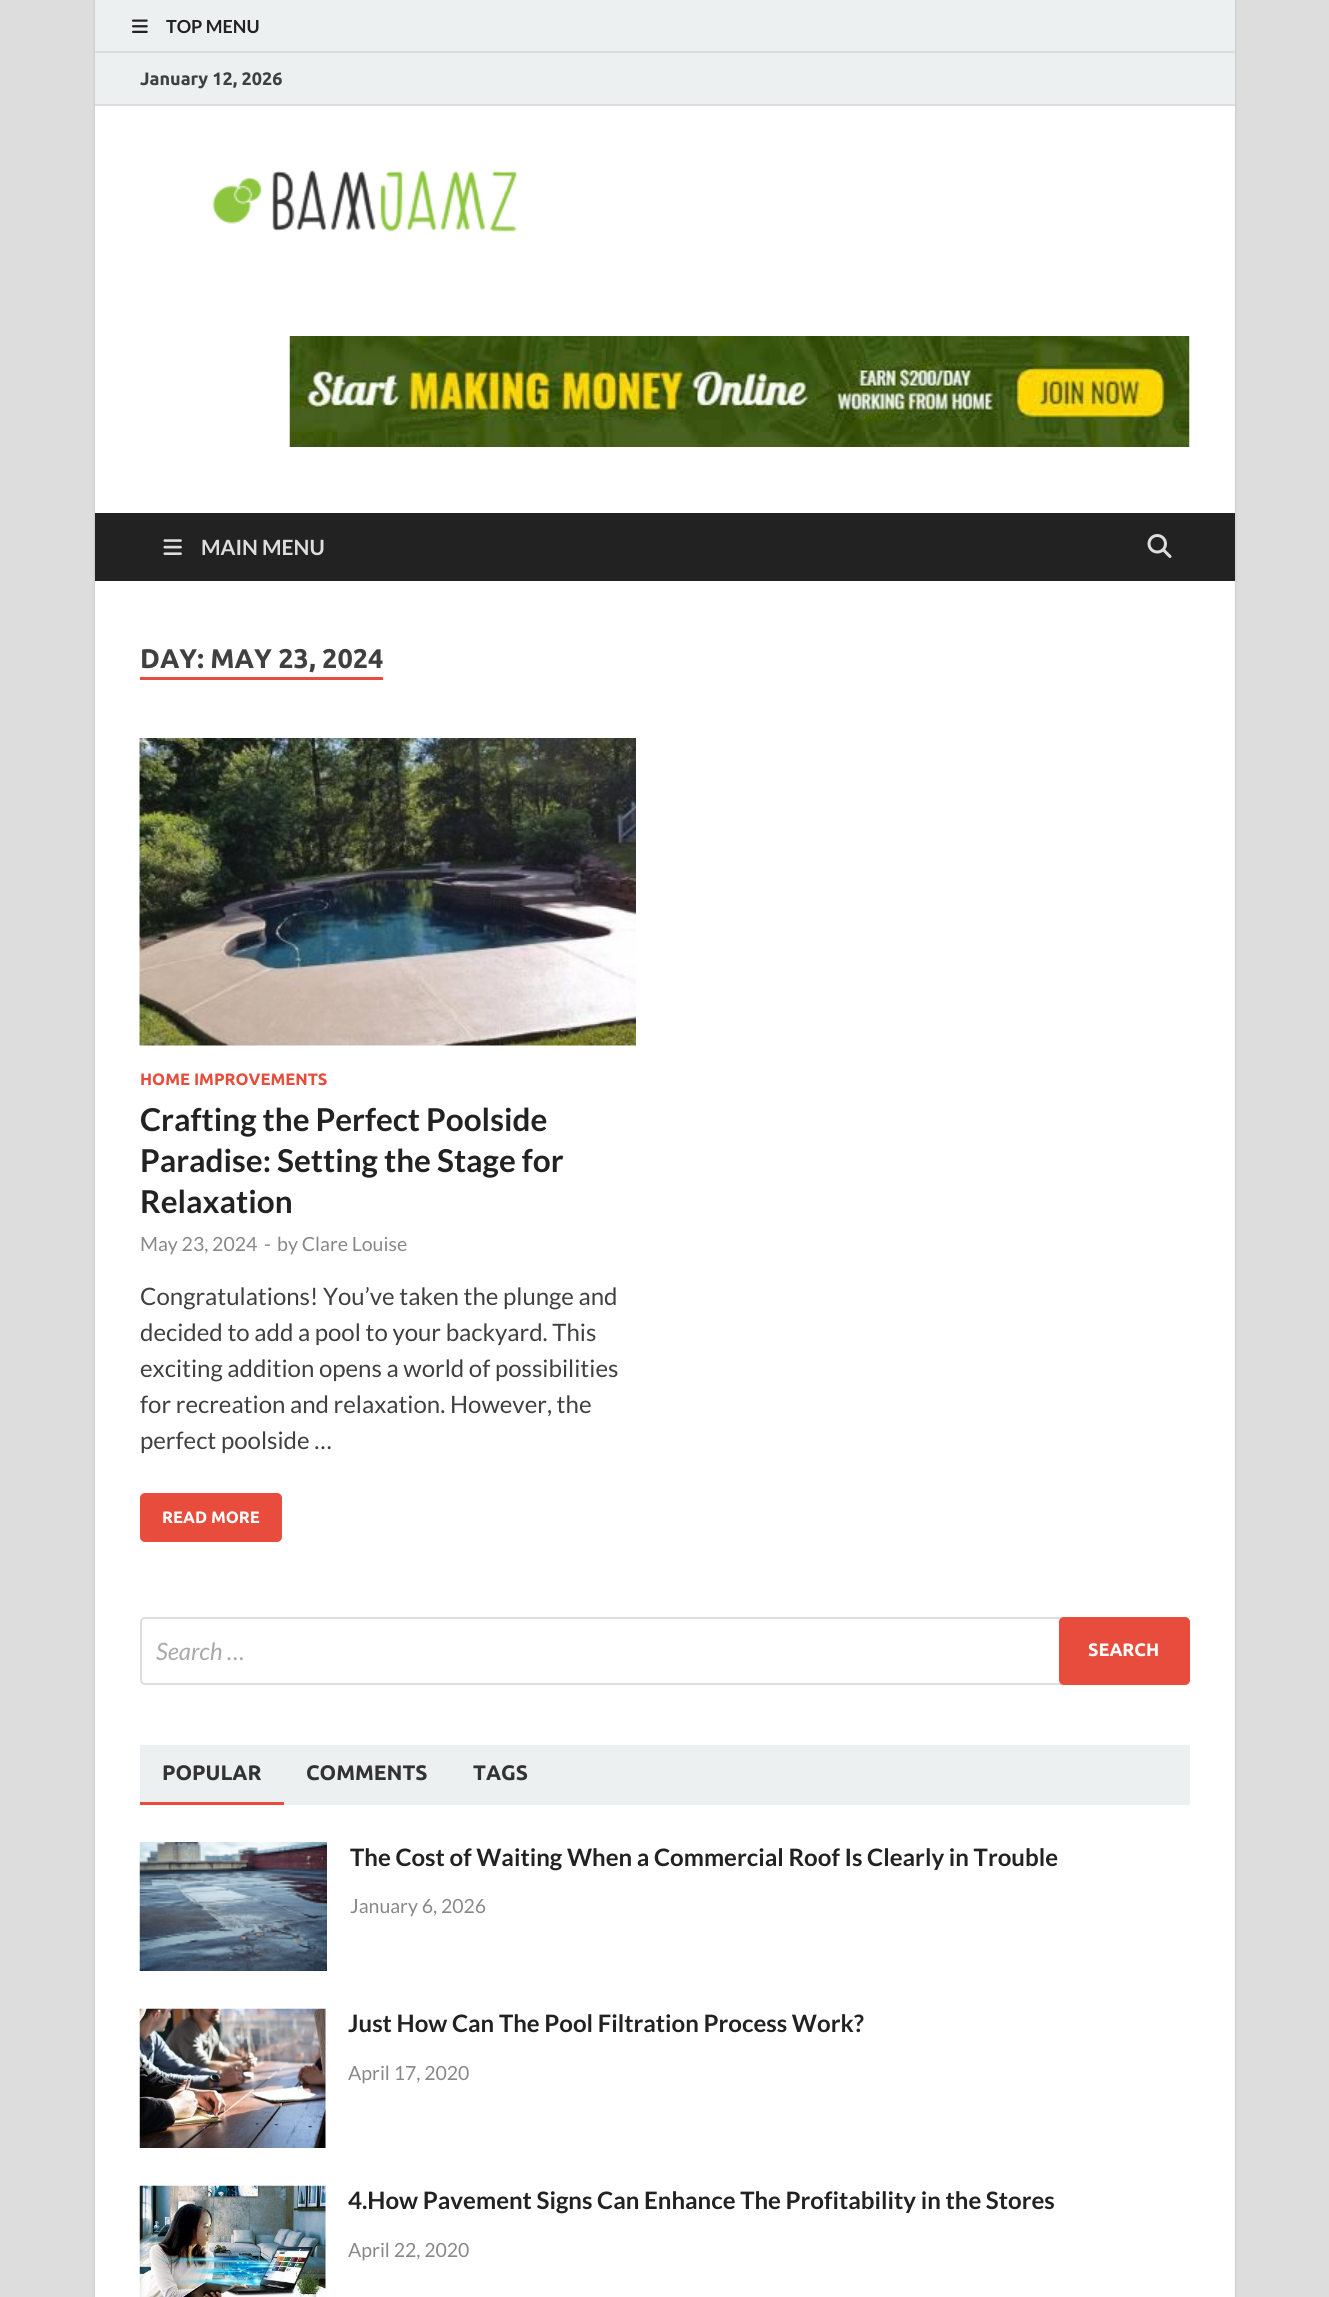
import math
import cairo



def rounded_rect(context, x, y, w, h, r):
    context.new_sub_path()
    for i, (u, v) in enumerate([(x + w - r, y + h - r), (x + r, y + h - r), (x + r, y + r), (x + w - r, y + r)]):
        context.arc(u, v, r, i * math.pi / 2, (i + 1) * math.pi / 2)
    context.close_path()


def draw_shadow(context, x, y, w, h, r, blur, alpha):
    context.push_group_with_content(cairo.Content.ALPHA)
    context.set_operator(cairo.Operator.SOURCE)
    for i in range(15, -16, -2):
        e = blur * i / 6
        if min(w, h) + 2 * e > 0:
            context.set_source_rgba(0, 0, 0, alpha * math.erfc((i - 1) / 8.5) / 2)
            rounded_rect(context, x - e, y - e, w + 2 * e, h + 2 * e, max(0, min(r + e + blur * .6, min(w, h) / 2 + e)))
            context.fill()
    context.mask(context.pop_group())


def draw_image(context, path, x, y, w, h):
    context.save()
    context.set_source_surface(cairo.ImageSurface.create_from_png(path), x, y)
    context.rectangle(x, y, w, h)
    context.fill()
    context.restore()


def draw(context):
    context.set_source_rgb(221 / 255, 221 / 255, 221 / 255)
    context.paint()
    context.set_source_rgb(187 / 255, 187 / 255, 187 / 255)
    draw_shadow(context, 95, 0, 1140, 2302, 0, 1.5, 1)
    context.set_source_rgb(1, 1, 1)
    context.rectangle(95, 106, 1140, 2191)
    context.fill()
    context.set_source_rgb(236 / 255, 240 / 255, 241 / 255)
    context.rectangle(95, 0, 1140, 51)
    context.fill()
    context.set_source_rgb(221 / 255, 221 / 255, 221 / 255)
    context.rectangle(95, 51, 1140, 2)
    context.fill()
    draw_image(context, "images/1.png", 132, 19, 16, 14)
    context.set_source_rgb(236 / 255, 240 / 255, 241 / 255)
    context.rectangle(95, 53, 1140, 51)
    context.fill()
    context.set_source_rgb(221 / 255, 221 / 255, 221 / 255)
    context.rectangle(95, 104, 1140, 2)
    context.fill()
    draw_image(context, "images/2.png", 212, 170, 306, 62)
    draw_image(context, "images/3.png", 289, 336, 901, 111)
    context.set_source_rgb(34 / 255, 34 / 255, 34 / 255)
    context.rectangle(95, 513, 1140, 68)
    context.fill()
    draw_image(context, "images/4.png", 163, 539, 19, 16)
    draw_image(context, "images/5.png", 1147, 534, 25, 24)
    context.set_source_rgb(231 / 255, 76 / 255, 60 / 255)
    context.rectangle(140, 677, 243, 3)
    context.fill()
    draw_image(context, "images/6.png", 139, 738, 497, 308)
    rounded_rect(context, 140, 1493, 142, 49, 5)
    context.fill()
    rounded_rect(context, 141, 1618, 1048, 66, 4)
    context.set_source_rgb(221 / 255, 221 / 255, 221 / 255)
    context.stroke()
    context.set_source_rgb(231 / 255, 76 / 255, 60 / 255)
    rounded_rect(context, 1059, 1617, 131, 68, 5)
    context.fill()
    context.set_source_rgb(236 / 255, 240 / 255, 241 / 255)
    context.rectangle(140, 1745, 1050, 60)
    context.fill()
    context.set_source_rgb(231 / 255, 76 / 255, 60 / 255)
    context.rectangle(140, 1802, 144, 3)
    context.fill()
    draw_image(context, "images/7.png", 139, 1842, 188, 129)
    draw_image(context, "images/8.png", 139, 2008, 187, 140)
    draw_image(context, "images/9.png", 139, 2185, 187, 112)
    context.select_font_face("Lato", cairo.FontSlant.NORMAL, cairo.FontWeight.BOLD)
    context.set_font_size(18)
    context.set_source_rgb(34 / 255, 34 / 255, 34 / 255)
    context.move_to(166, 33)
    context.show_text("TOP MENU")
    context.select_font_face("Ubuntu", cairo.FontSlant.NORMAL, cairo.FontWeight.BOLD)
    context.set_source_rgb(64 / 255, 64 / 255, 64 / 255)
    context.move_to(140, 85)
    context.show_text("January 12, 2026")
    context.select_font_face("Lato", cairo.FontSlant.NORMAL, cairo.FontWeight.BOLD)
    context.set_font_size(21)
    context.set_source_rgb(221 / 255, 221 / 255, 221 / 255)
    context.move_to(201, 555)
    context.show_text("MAIN MENU")
    context.select_font_face("Ubuntu", cairo.FontSlant.NORMAL, cairo.FontWeight.BOLD)
    context.set_font_size(27)
    context.set_source_rgb(64 / 255, 64 / 255, 64 / 255)
    context.move_to(140, 668)
    context.show_text("DAY: MAY 23, 2024")
    context.set_font_size(16.5)
    context.set_source_rgb(231 / 255, 76 / 255, 60 / 255)
    context.move_to(140, 1085)
    context.show_text("HOME IMPROVEMENTS")
    context.select_font_face("Lato", cairo.FontSlant.NORMAL, cairo.FontWeight.BOLD)
    context.set_font_size(31.5)
    context.set_source_rgb(34 / 255, 34 / 255, 34 / 255)
    context.move_to(140, 1131)
    context.show_text("Crafting the Perfect Poolside")
    context.move_to(140, 1172)
    context.show_text("Paradise: Setting the Stage for")
    context.move_to(140, 1213)
    context.show_text("Relaxation")
    context.select_font_face("Lato")
    context.set_font_size(19.5)
    context.set_source_rgb(136 / 255, 136 / 255, 136 / 255)
    context.move_to(140, 1251)
    context.show_text("May 23, 2024")
    context.move_to(264, 1251)
    context.show_text("-")
    context.move_to(277, 1251)
    context.show_text("by Clare Louise")
    context.set_font_size(24)
    context.set_source_rgb(64 / 255, 64 / 255, 64 / 255)
    context.move_to(140, 1305)
    context.show_text("Congratulations! You’ve taken the plunge and")
    context.move_to(140, 1341)
    context.show_text("decided to add a pool to your backyard. This")
    context.move_to(140, 1377)
    context.show_text("exciting addition opens a world of possibilities")
    context.move_to(140, 1413)
    context.show_text("for recreation and relaxation. However, the")
    context.move_to(140, 1449)
    context.show_text("perfect poolside …")
    context.select_font_face("Ubuntu", cairo.FontSlant.NORMAL, cairo.FontWeight.BOLD)
    context.set_font_size(16.5)
    context.set_source_rgb(1, 1, 1)
    context.move_to(162, 1523)
    context.show_text("READ MORE")
    context.select_font_face("Lato", cairo.FontSlant.ITALIC)
    context.set_font_size(24)
    context.set_source_rgb(170 / 255, 170 / 255, 170 / 255)
    context.move_to(156, 1660)
    context.show_text("Search …")
    context.select_font_face("Ubuntu", cairo.FontSlant.NORMAL, cairo.FontWeight.BOLD)
    context.set_font_size(18)
    context.set_source_rgb(1, 1, 1)
    context.move_to(1088, 1656)
    context.show_text("SEARCH")
    context.set_font_size(21)
    context.set_source_rgb(51 / 255, 51 / 255, 51 / 255)
    context.move_to(162, 1780)
    context.show_text("POPULAR")
    context.move_to(306, 1780)
    context.show_text("COMMENTS")
    context.move_to(473, 1780)
    context.show_text("TAGS")
    context.save()
    context.rectangle(350, 1842, 840, 80)
    context.clip()
    context.select_font_face("Lato", cairo.FontSlant.NORMAL, cairo.FontWeight.BOLD)
    context.set_font_size(24)
    context.set_source_rgb(34 / 255, 34 / 255, 34 / 255)
    context.move_to(350, 1866)
    context.show_text("The Cost of Waiting When a Commercial Roof Is Clearly in Trouble")
    context.restore()
    context.select_font_face("Lato")
    context.set_font_size(19.5)
    context.set_source_rgb(136 / 255, 136 / 255, 136 / 255)
    context.move_to(350, 1913)
    context.show_text("January 6, 2026")
    context.select_font_face("Lato", cairo.FontSlant.NORMAL, cairo.FontWeight.BOLD)
    context.set_font_size(24)
    context.set_source_rgb(34 / 255, 34 / 255, 34 / 255)
    context.move_to(348, 2032)
    context.show_text("Just How Can The Pool Filtration Process Work?")
    context.select_font_face("Lato")
    context.set_font_size(19.5)
    context.set_source_rgb(136 / 255, 136 / 255, 136 / 255)
    context.move_to(348, 2080)
    context.show_text("April 17, 2020")
    context.select_font_face("Lato", cairo.FontSlant.NORMAL, cairo.FontWeight.BOLD)
    context.set_font_size(24)
    context.set_source_rgb(34 / 255, 34 / 255, 34 / 255)
    context.move_to(348, 2209)
    context.show_text("4.How Pavement Signs Can Enhance The Profitability in the Stores")
    context.select_font_face("Lato")
    context.set_font_size(19.5)
    context.set_source_rgb(136 / 255, 136 / 255, 136 / 255)
    context.move_to(348, 2257)
    context.show_text("April 22, 2020")


surface = cairo.ImageSurface(cairo.Format.RGB24, 1329, 2297)
context = cairo.Context(surface)
options = cairo.FontOptions()
options.set_hint_metrics(cairo.HintMetrics.OFF)
options.set_hint_style(cairo.HintStyle.NONE)
context.set_font_options(options)
context.set_miter_limit(4)
draw(context)
surface.write_to_png("out.png")
